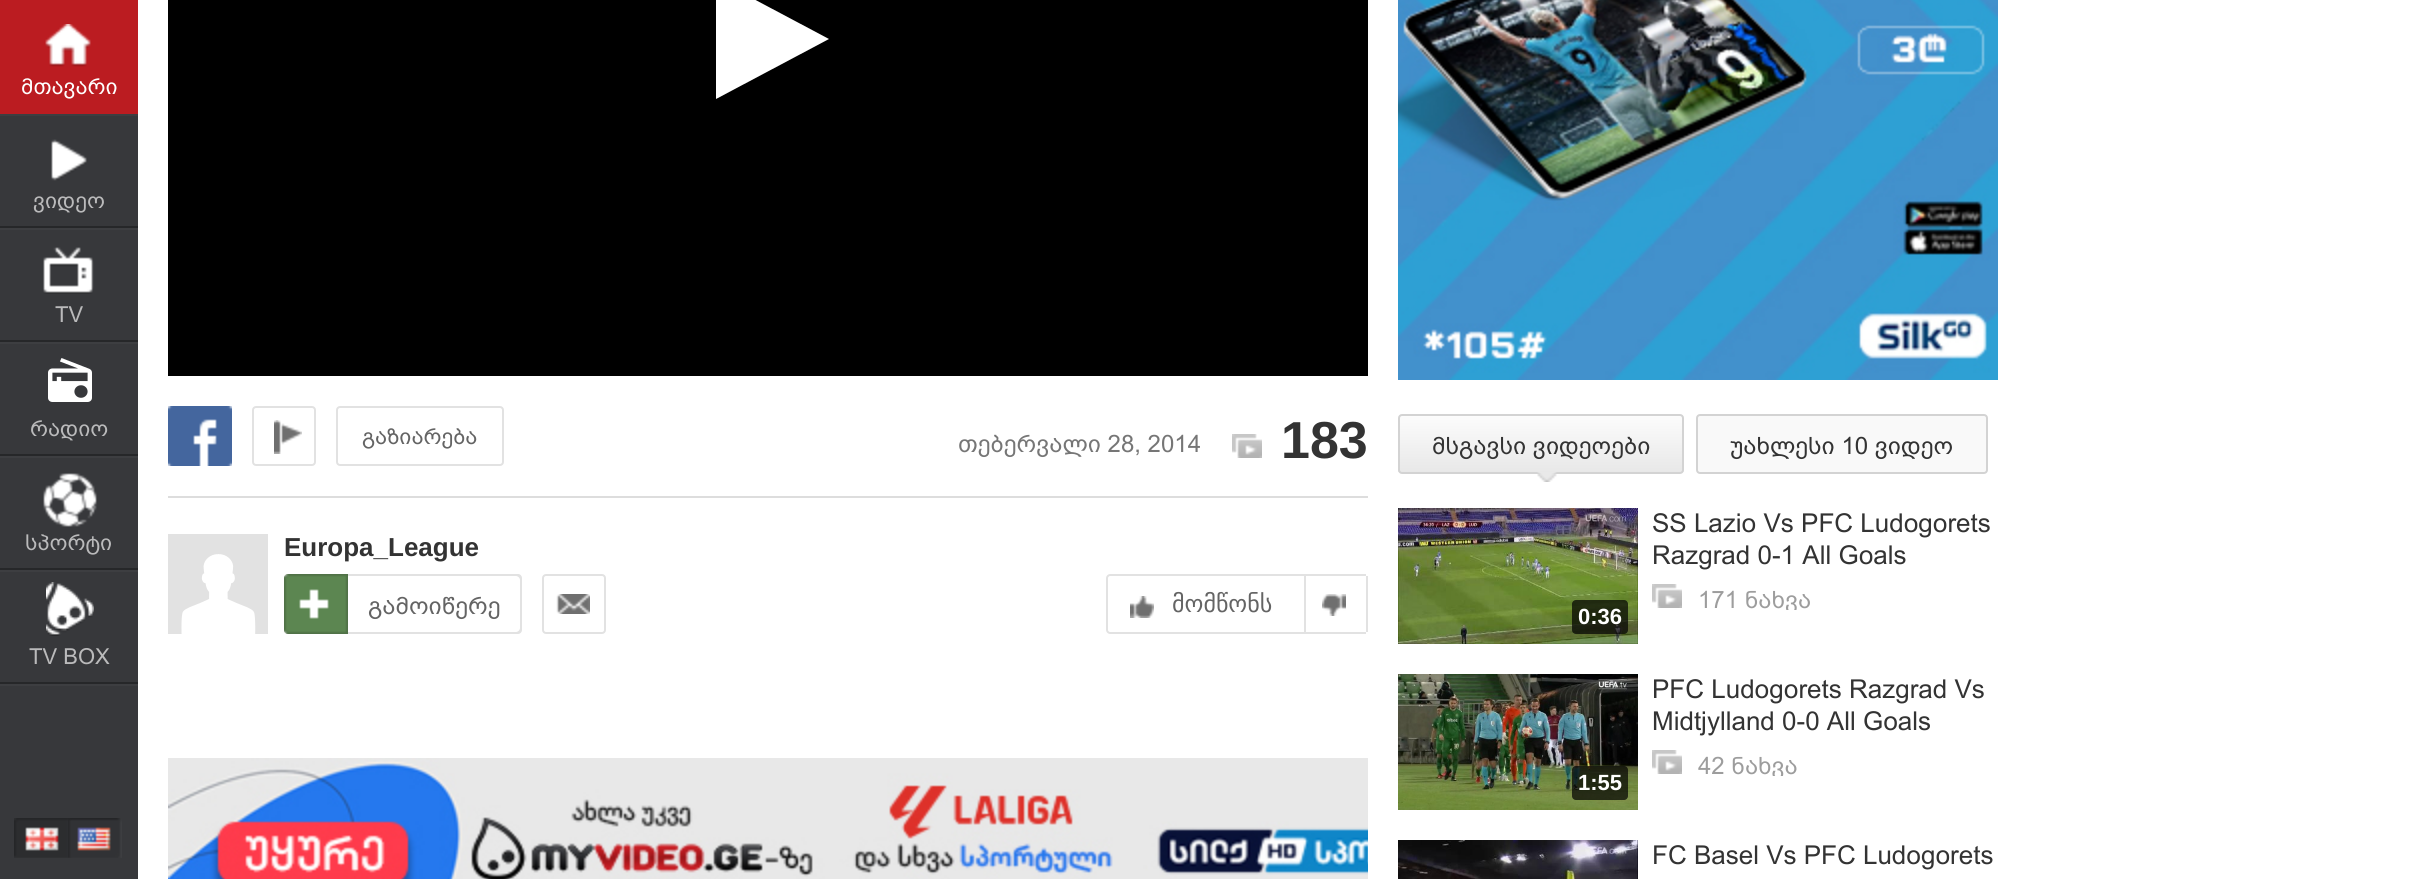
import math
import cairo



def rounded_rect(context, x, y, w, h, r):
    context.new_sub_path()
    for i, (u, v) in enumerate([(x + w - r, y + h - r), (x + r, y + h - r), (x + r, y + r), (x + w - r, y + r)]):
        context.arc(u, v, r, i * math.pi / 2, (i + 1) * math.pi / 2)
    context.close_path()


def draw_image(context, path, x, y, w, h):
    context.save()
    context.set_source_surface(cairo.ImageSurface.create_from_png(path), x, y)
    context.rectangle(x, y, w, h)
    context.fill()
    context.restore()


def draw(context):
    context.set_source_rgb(1, 1, 1)
    context.paint()
    context.set_source_rgb(55 / 255, 56 / 255, 59 / 255)
    context.rectangle(0, 116, 138, 763)
    context.fill()
    context.set_source_rgb(61 / 255, 62 / 255, 65 / 255)
    context.rectangle(0, 114, 138, 2)
    context.fill()
    context.set_source_rgb(187 / 255, 28 / 255, 33 / 255)
    context.rectangle(0, 0, 138, 114)
    context.fill()
    draw_image(context, "images/1.png", 45, 24, 46, 43)
    context.set_source_rgb(61 / 255, 62 / 255, 65 / 255)
    context.rectangle(0, 228, 138, 2)
    context.fill()
    context.set_source_rgb(38 / 255, 39 / 255, 41 / 255)
    context.rectangle(0, 226, 138, 2)
    context.fill()
    draw_image(context, "images/2.png", 51, 139, 36, 42)
    context.set_source_rgb(61 / 255, 62 / 255, 65 / 255)
    context.rectangle(0, 342, 138, 2)
    context.fill()
    context.set_source_rgb(38 / 255, 39 / 255, 41 / 255)
    context.rectangle(0, 340, 138, 2)
    context.fill()
    draw_image(context, "images/3.png", 43, 247, 51, 47)
    context.set_source_rgb(61 / 255, 62 / 255, 65 / 255)
    context.rectangle(0, 456, 138, 2)
    context.fill()
    context.set_source_rgb(38 / 255, 39 / 255, 41 / 255)
    context.rectangle(0, 454, 138, 2)
    context.fill()
    draw_image(context, "images/4.png", 48, 358, 44, 44)
    context.set_source_rgb(61 / 255, 62 / 255, 65 / 255)
    context.rectangle(0, 570, 138, 2)
    context.fill()
    context.set_source_rgb(38 / 255, 39 / 255, 41 / 255)
    context.rectangle(0, 568, 138, 2)
    context.fill()
    draw_image(context, "images/5.png", 43, 473, 54, 54)
    context.set_source_rgb(61 / 255, 62 / 255, 65 / 255)
    context.rectangle(0, 684, 138, 2)
    context.fill()
    context.set_source_rgb(38 / 255, 39 / 255, 41 / 255)
    context.rectangle(0, 682, 138, 2)
    context.fill()
    draw_image(context, "images/6.png", 46, 582, 48, 54)
    draw_image(context, "images/7.png", 14, 818, 54, 40)
    draw_image(context, "images/8.png", 68, 818, 54, 40)
    context.set_source_rgb(0, 0, 0)
    context.rectangle(168, 0, 1200, 376)
    context.fill()
    context.set_source_rgb(1, 1, 1)
    context.new_path()
    context.move_to(716, 99)
    context.line_to(716, -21)
    context.line_to(829, 39)
    context.close_path()
    context.fill()
    context.set_source_rgb(221 / 255, 221 / 255, 221 / 255)
    context.rectangle(168, 496, 1200, 2)
    context.fill()
    draw_image(context, "images/9.png", 168, 406, 64, 60)
    draw_image(context, "images/10.png", 274, 420, 28, 34)
    rounded_rect(context, 253, 407, 62, 58, 3)
    context.set_source_rgb(226 / 255, 226 / 255, 226 / 255)
    context.stroke()
    rounded_rect(context, 337, 407, 166, 58, 3)
    context.stroke()
    draw_image(context, "images/11.png", 1232, 434, 30, 24)
    draw_image(context, "images/12.png", 168, 534, 100, 100)
    rounded_rect(context, 284, 574, 238, 60, 4)
    context.fill()
    draw_image(context, "images/13.png", 284, 574, 64, 60)
    context.set_source_rgb(1, 1, 1)
    context.new_path()
    context.move_to(348, 576)
    context.line_to(516, 576)
    context.curve_to(518, 576, 520, 578, 520, 580)
    context.line_to(520, 628)
    context.curve_to(520, 630, 518, 632, 516, 632)
    context.line_to(348, 632)
    context.close_path()
    context.fill()
    draw_image(context, "images/14.png", 556, 594, 34, 20)
    rounded_rect(context, 543, 575, 62, 58, 3)
    context.set_source_rgb(226 / 255, 226 / 255, 226 / 255)
    context.stroke()
    context.new_path()
    context.move_to(1110, 575)
    context.line_to(1305, 575)
    context.line_to(1305, 633)
    context.line_to(1110, 633)
    context.curve_to(1108.5, 633, 1107, 631.5, 1107, 630)
    context.line_to(1107, 578)
    context.curve_to(1107, 576.5, 1108.5, 575, 1110, 575)
    context.close_path()
    context.stroke()
    draw_image(context, "images/15.png", 1130, 596, 24, 22)
    context.rectangle(1306, 574, 60, 2)
    context.fill()
    context.rectangle(1366, 576, 2, 56)
    context.fill()
    context.rectangle(1306, 632, 60, 2)
    context.fill()
    draw_image(context, "images/16.png", 1322, 594, 24, 22)
    draw_image(context, "images/17.png", 168, 758, 1200, 121)
    draw_image(context, "images/18.png", 1398, 0, 600, 380)
    context.save()
    rounded_rect(context, 1398, 414, 286, 60, 4)
    context.clip()
    gradient = cairo.LinearGradient(1541, 416, 1541, 472)
    gradient.add_color_stop_rgba(0, 252 / 255, 252 / 255, 252 / 255, 1)
    gradient.add_color_stop_rgba(1, 232 / 255, 232 / 255, 232 / 255, 1)
    context.set_source(gradient)
    context.rectangle(1398, 416, 286, 56)
    context.fill()
    context.restore()
    rounded_rect(context, 1399, 415, 284, 58, 3)
    context.set_source_rgb(211 / 255, 211 / 255, 211 / 255)
    context.stroke()
    draw_image(context, "images/19.png", 1537, 472, 20, 10)
    context.set_source_rgb(249 / 255, 249 / 255, 249 / 255)
    rounded_rect(context, 1697, 415, 290, 58, 3)
    context.fill_preserve()
    context.set_source_rgb(211 / 255, 211 / 255, 211 / 255)
    context.stroke()
    draw_image(context, "images/11.png", 1652, 584, 30, 24)
    draw_image(context, "images/20.png", 1398, 508, 240, 136)
    context.set_source_rgba(0, 0, 0, 0.7)
    rounded_rect(context, 1572, 600, 56, 34, 4)
    context.fill()
    draw_image(context, "images/11.png", 1652, 750, 30, 24)
    draw_image(context, "images/21.png", 1398, 674, 240, 136)
    rounded_rect(context, 1572, 766, 56, 34, 4)
    context.fill()
    draw_image(context, "images/22.png", 1398, 840, 240, 39)
    context.select_font_face("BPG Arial")
    context.set_font_size(22)
    context.set_source_rgb(1, 1, 1)
    context.move_to(21, 94)
    context.show_text("მთავარი")
    context.set_source_rgb(186 / 255, 186 / 255, 187 / 255)
    context.move_to(33, 208)
    context.show_text("ვიდეო")
    context.move_to(55, 322)
    context.show_text("TV")
    context.move_to(30, 436)
    context.show_text("რადიო")
    context.move_to(25, 550)
    context.show_text("სპორტი")
    context.move_to(29, 664)
    context.show_text("TV BOX")
    context.set_source_rgb(100 / 255, 100 / 255, 100 / 255)
    context.move_to(362, 444)
    context.show_text("გაზიარება")
    context.set_font_size(24)
    context.set_source_rgb(118 / 255, 118 / 255, 118 / 255)
    context.move_to(958, 452)
    context.show_text("თებერვალი 28, 2014")
    context.select_font_face("Liberation Sans", cairo.FontSlant.NORMAL, cairo.FontWeight.BOLD)
    context.set_font_size(52)
    context.set_source_rgb(51 / 255, 51 / 255, 51 / 255)
    context.move_to(1281, 458)
    context.show_text("183")
    context.set_font_size(26)
    context.move_to(284, 556)
    context.show_text("Europa_League")
    context.select_font_face("BPG Arial")
    context.set_font_size(24)
    context.set_source_rgb(100 / 255, 100 / 255, 100 / 255)
    context.move_to(368, 614)
    context.show_text("გამოიწერე")
    context.select_font_face("DejaVu Sans")
    context.move_to(1172, 612)
    context.show_text("მომწონს")
    context.select_font_face("BPG Arial")
    context.set_source_rgb(51 / 255, 51 / 255, 51 / 255)
    context.move_to(1432, 454)
    context.show_text("მსგავსი ვიდეოები")
    context.move_to(1730, 454)
    context.show_text("უახლესი 10 ვიდეო")
    context.set_font_size(26)
    context.move_to(1652, 532)
    context.show_text("SS Lazio Vs PFC Ludogorets")
    context.move_to(1652, 564)
    context.show_text("Razgrad 0-1 All Goals")
    context.save()
    context.rectangle(1652, 584, 346, 26)
    context.clip()
    context.set_font_size(24)
    context.set_source_rgb(157 / 255, 157 / 255, 157 / 255)
    context.move_to(1698, 608)
    context.show_text("171 ნახვა")
    context.restore()
    context.select_font_face("Liberation Sans", cairo.FontSlant.NORMAL, cairo.FontWeight.BOLD)
    context.set_font_size(22)
    context.set_source_rgb(1, 1, 1)
    context.move_to(1578, 624)
    context.show_text("0:36")
    context.select_font_face("BPG Arial")
    context.set_font_size(26)
    context.set_source_rgb(51 / 255, 51 / 255, 51 / 255)
    context.move_to(1652, 698)
    context.show_text("PFC Ludogorets Razgrad Vs")
    context.move_to(1652, 730)
    context.show_text("Midtjylland 0-0 All Goals")
    context.save()
    context.rectangle(1652, 750, 346, 26)
    context.clip()
    context.set_font_size(24)
    context.set_source_rgb(157 / 255, 157 / 255, 157 / 255)
    context.move_to(1698, 774)
    context.show_text("42 ნახვა")
    context.restore()
    context.select_font_face("Liberation Sans", cairo.FontSlant.NORMAL, cairo.FontWeight.BOLD)
    context.set_font_size(22)
    context.set_source_rgb(1, 1, 1)
    context.move_to(1578, 790)
    context.show_text("1:55")
    context.select_font_face("BPG Arial")
    context.set_font_size(26)
    context.set_source_rgb(51 / 255, 51 / 255, 51 / 255)
    context.move_to(1652, 864)
    context.show_text("FC Basel Vs PFC Ludogorets")


surface = cairo.ImageSurface(cairo.Format.RGB24, 2424, 879)
context = cairo.Context(surface)
options = cairo.FontOptions()
options.set_hint_metrics(cairo.HintMetrics.OFF)
options.set_hint_style(cairo.HintStyle.NONE)
context.set_font_options(options)
context.set_miter_limit(4)
draw(context)
surface.write_to_png("out.png")
